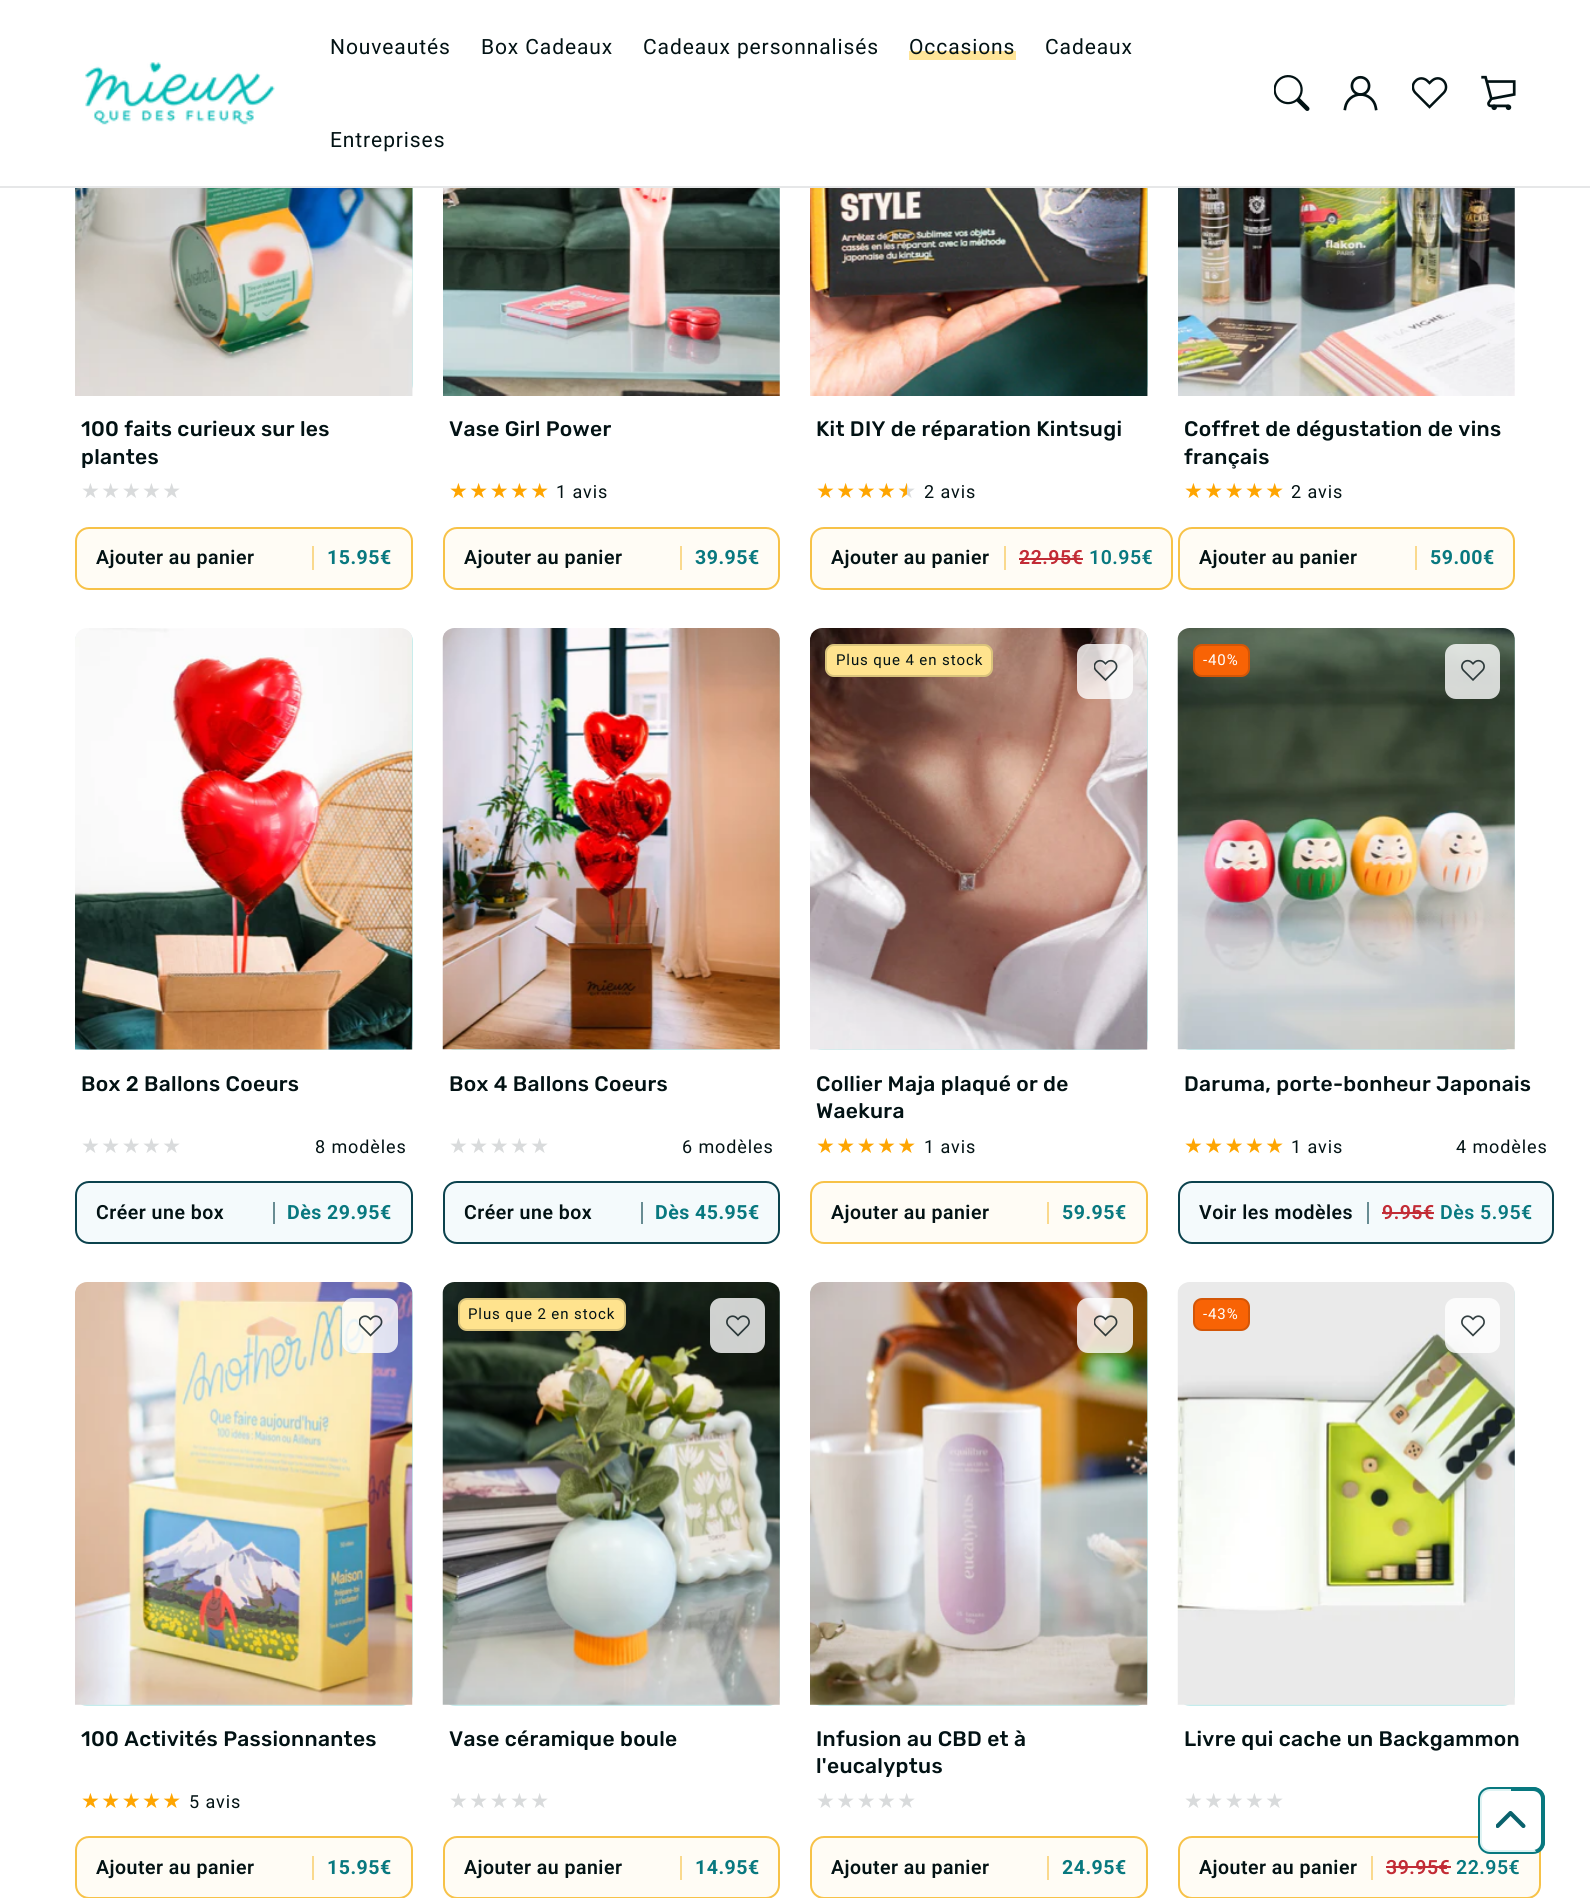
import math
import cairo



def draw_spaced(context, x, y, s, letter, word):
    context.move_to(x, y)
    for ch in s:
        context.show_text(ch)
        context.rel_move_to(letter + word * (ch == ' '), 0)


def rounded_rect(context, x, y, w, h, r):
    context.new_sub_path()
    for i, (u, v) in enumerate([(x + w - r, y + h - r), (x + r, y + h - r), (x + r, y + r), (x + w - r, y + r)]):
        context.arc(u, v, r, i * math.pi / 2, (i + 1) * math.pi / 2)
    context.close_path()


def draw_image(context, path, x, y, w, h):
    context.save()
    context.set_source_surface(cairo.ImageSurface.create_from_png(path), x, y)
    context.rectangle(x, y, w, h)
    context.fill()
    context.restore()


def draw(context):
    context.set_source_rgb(1, 1, 1)
    context.paint()
    gradient = cairo.LinearGradient(795, 0, 795, 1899)
    gradient.add_color_stop_rgba(0, 185 / 255, 236 / 255, 236 / 255, 1)
    gradient.add_color_stop_rgba(1, 197 / 255, 237 / 255, 237 / 255, 1)
    context.set_source(gradient)
    context.new_path()
    context.move_to(75, 0)
    context.line_to(413, 0)
    context.line_to(413, 384)
    context.curve_to(413, 390.5, 407.5, 396, 401, 396)
    context.line_to(87, 396)
    context.curve_to(80.5, 396, 75, 390.5, 75, 384)
    context.close_path()
    context.fill()
    context.new_path()
    context.move_to(810, 0)
    context.line_to(1148, 0)
    context.line_to(1148, 384)
    context.curve_to(1148, 390.5, 1142.5, 396, 1136, 396)
    context.line_to(822, 396)
    context.curve_to(815.5, 396, 810, 390.5, 810, 384)
    context.close_path()
    context.fill()
    context.set_source_rgb(1, 1, 1)
    context.rectangle(75, 0, 1073, 186)
    context.fill()
    context.set_source_rgb(230 / 255, 231 / 255, 232 / 255)
    context.rectangle(0, 186, 1590, 2)
    context.fill()
    draw_image(context, "images/1.png", 85, 62, 190, 63)
    context.set_source_rgb(1, 229 / 255, 153 / 255)
    context.rectangle(909, 51, 107, 9)
    context.fill()
    draw_image(context, "images/2.png", 1274, 75, 36, 36)
    draw_image(context, "images/3.png", 1343, 75, 35, 36)
    context.save()
    context.rectangle(1412, 75, 36, 36)
    context.clip()
    context.new_path()
    context.move_to(1443.5, 93)
    context.line_to(1429.5, 107)
    context.line_to(1415.5, 93)
    context.curve_to(1412, 89.5, 1412, 84, 1415.5, 81)
    context.curve_to(1418.5, 77.5, 1424, 77.5, 1427.5, 81)
    context.line_to(1429.5, 83)
    context.curve_to(1431, 81.5, 1432.5, 80, 1434.5, 79)
    context.curve_to(1443, 75.5, 1450, 86.5, 1443.5, 93)
    context.close_path()
    context.set_source_rgb(2 / 255, 18 / 255, 20 / 255)
    context.set_line_width(2.5)
    context.stroke()
    context.restore()
    draw_image(context, "images/4.png", 1481, 75, 35, 36)
    draw_image(context, "images/5.png", 75, 188, 338, 208)
    context.set_source_rgb(1, 252 / 255, 245 / 255)
    rounded_rect(context, 75, 527, 338, 63, 14)
    context.fill()
    context.set_source_rgb(250 / 255, 217 / 255, 141 / 255)
    context.rectangle(312, 546, 2, 24)
    context.fill()
    rounded_rect(context, 76, 528, 336, 61, 13)
    context.set_source_rgb(247 / 255, 194 / 255, 72 / 255)
    context.stroke()
    draw_image(context, "images/6.png", 443, 188, 337, 208)
    context.set_source_rgb(1, 252 / 255, 245 / 255)
    rounded_rect(context, 443, 527, 337, 63, 14)
    context.fill()
    context.set_source_rgb(250 / 255, 217 / 255, 141 / 255)
    context.rectangle(680, 546, 2, 24)
    context.fill()
    rounded_rect(context, 444, 528, 335, 61, 13)
    context.set_source_rgb(247 / 255, 194 / 255, 72 / 255)
    context.stroke()
    draw_image(context, "images/7.png", 810, 188, 338, 208)
    context.set_source_rgb(1, 252 / 255, 245 / 255)
    rounded_rect(context, 810, 527, 363, 63, 14)
    context.fill()
    context.set_source_rgb(250 / 255, 217 / 255, 141 / 255)
    context.rectangle(1004, 546, 2, 24)
    context.fill()
    context.set_source_rgb(194 / 255, 43 / 255, 53 / 255)
    context.rectangle(1019, 558, 64, 2)
    context.fill()
    rounded_rect(context, 811, 528, 361, 61, 13)
    context.set_source_rgb(247 / 255, 194 / 255, 72 / 255)
    context.stroke()
    draw_image(context, "images/8.png", 1178, 188, 337, 208)
    context.set_source_rgb(1, 252 / 255, 245 / 255)
    rounded_rect(context, 1178, 527, 337, 63, 14)
    context.fill()
    context.set_source_rgb(250 / 255, 217 / 255, 141 / 255)
    context.rectangle(1415, 546, 2, 24)
    context.fill()
    rounded_rect(context, 1179, 528, 335, 61, 13)
    context.set_source_rgb(247 / 255, 194 / 255, 72 / 255)
    context.stroke()
    gradient = cairo.LinearGradient(795, 0, 795, 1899)
    gradient.add_color_stop_rgba(0, 185 / 255, 236 / 255, 236 / 255, 1)
    gradient.add_color_stop_rgba(1, 197 / 255, 237 / 255, 237 / 255, 1)
    context.set_source(gradient)
    rounded_rect(context, 75, 629, 338, 421, 12)
    context.fill()
    draw_image(context, "images/9.png", 75, 628, 338, 422)
    context.set_source_rgb(244 / 255, 250 / 255, 252 / 255)
    rounded_rect(context, 75, 1181, 338, 63, 14)
    context.fill()
    context.set_source_rgb(104 / 255, 140 / 255, 147 / 255)
    context.rectangle(273, 1202, 2, 22)
    context.fill()
    rounded_rect(context, 76, 1182, 336, 61, 13)
    context.set_source_rgb(11 / 255, 66 / 255, 77 / 255)
    context.stroke()
    gradient = cairo.LinearGradient(795, 0, 795, 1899)
    gradient.add_color_stop_rgba(0, 185 / 255, 236 / 255, 236 / 255, 1)
    gradient.add_color_stop_rgba(1, 197 / 255, 237 / 255, 237 / 255, 1)
    context.set_source(gradient)
    rounded_rect(context, 443, 629, 337, 421, 12)
    context.fill()
    draw_image(context, "images/10.png", 442, 628, 338, 422)
    context.set_source_rgb(244 / 255, 250 / 255, 252 / 255)
    rounded_rect(context, 443, 1181, 337, 63, 14)
    context.fill()
    context.set_source_rgb(104 / 255, 140 / 255, 147 / 255)
    context.rectangle(641, 1202, 2, 22)
    context.fill()
    rounded_rect(context, 444, 1182, 335, 61, 13)
    context.set_source_rgb(11 / 255, 66 / 255, 77 / 255)
    context.stroke()
    gradient = cairo.LinearGradient(795, 0, 795, 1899)
    gradient.add_color_stop_rgba(0, 185 / 255, 236 / 255, 236 / 255, 1)
    gradient.add_color_stop_rgba(1, 197 / 255, 237 / 255, 237 / 255, 1)
    context.set_source(gradient)
    rounded_rect(context, 810, 629, 338, 421, 12)
    context.fill()
    draw_image(context, "images/11.png", 810, 628, 338, 422)
    context.set_source_rgb(1, 227 / 255, 142 / 255)
    rounded_rect(context, 825, 644, 168, 33, 9)
    context.fill()
    rounded_rect(context, 826, 645, 166, 31, 8)
    context.set_source_rgba(2 / 255, 18 / 255, 20 / 255, 0.15)
    context.stroke()
    context.set_source_rgba(1, 1, 1, 0.8)
    rounded_rect(context, 1077, 644, 56, 55, 11)
    context.fill()
    draw_image(context, "images/12.png", 1094, 659, 24, 22)
    context.set_source_rgb(1, 252 / 255, 245 / 255)
    rounded_rect(context, 810, 1181, 338, 63, 14)
    context.fill()
    context.set_source_rgb(250 / 255, 217 / 255, 141 / 255)
    context.rectangle(1047, 1202, 2, 22)
    context.fill()
    rounded_rect(context, 811, 1182, 336, 61, 13)
    context.set_source_rgb(247 / 255, 194 / 255, 72 / 255)
    context.stroke()
    gradient = cairo.LinearGradient(795, 0, 795, 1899)
    gradient.add_color_stop_rgba(0, 185 / 255, 236 / 255, 236 / 255, 1)
    gradient.add_color_stop_rgba(1, 197 / 255, 237 / 255, 237 / 255, 1)
    context.set_source(gradient)
    rounded_rect(context, 1178, 629, 337, 421, 12)
    context.fill()
    draw_image(context, "images/13.png", 1177, 628, 338, 422)
    context.set_source_rgb(248 / 255, 99 / 255, 5 / 255)
    rounded_rect(context, 1193, 644, 57, 33, 9)
    context.fill()
    rounded_rect(context, 1194, 645, 55, 31, 8)
    context.set_source_rgba(2 / 255, 18 / 255, 20 / 255, 0.15)
    context.stroke()
    context.set_source_rgba(1, 1, 1, 0.8)
    rounded_rect(context, 1445, 644, 55, 55, 11)
    context.fill()
    draw_image(context, "images/14.png", 1461, 659, 24, 22)
    context.set_source_rgb(244 / 255, 250 / 255, 252 / 255)
    rounded_rect(context, 1178, 1181, 376, 63, 14)
    context.fill()
    context.set_source_rgb(104 / 255, 140 / 255, 147 / 255)
    context.rectangle(1367, 1202, 2, 22)
    context.fill()
    context.set_source_rgb(194 / 255, 43 / 255, 53 / 255)
    context.rectangle(1382, 1212, 52, 2)
    context.fill()
    rounded_rect(context, 1179, 1182, 374, 61, 13)
    context.set_source_rgb(11 / 255, 66 / 255, 77 / 255)
    context.stroke()
    gradient = cairo.LinearGradient(795, 0, 795, 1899)
    gradient.add_color_stop_rgba(0, 185 / 255, 236 / 255, 236 / 255, 1)
    gradient.add_color_stop_rgba(1, 197 / 255, 237 / 255, 237 / 255, 1)
    context.set_source(gradient)
    rounded_rect(context, 75, 1283, 338, 423, 12)
    context.fill()
    draw_image(context, "images/15.png", 75, 1282, 338, 423)
    context.set_source_rgba(1, 1, 1, 0.8)
    rounded_rect(context, 342, 1298, 56, 55, 11)
    context.fill()
    draw_image(context, "images/16.png", 359, 1315, 24, 22)
    context.set_source_rgb(1, 252 / 255, 245 / 255)
    rounded_rect(context, 75, 1836, 338, 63, 14)
    context.fill()
    context.set_source_rgb(250 / 255, 217 / 255, 141 / 255)
    context.rectangle(312, 1856, 2, 24)
    context.fill()
    rounded_rect(context, 76, 1837, 336, 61, 13)
    context.set_source_rgb(247 / 255, 194 / 255, 72 / 255)
    context.stroke()
    gradient = cairo.LinearGradient(795, 0, 795, 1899)
    gradient.add_color_stop_rgba(0, 185 / 255, 236 / 255, 236 / 255, 1)
    gradient.add_color_stop_rgba(1, 197 / 255, 237 / 255, 237 / 255, 1)
    context.set_source(gradient)
    rounded_rect(context, 443, 1283, 337, 423, 12)
    context.fill()
    draw_image(context, "images/17.png", 442, 1282, 338, 423)
    context.set_source_rgb(1, 227 / 255, 142 / 255)
    rounded_rect(context, 458, 1298, 168, 33, 9)
    context.fill()
    rounded_rect(context, 459, 1299, 166, 31, 8)
    context.set_source_rgba(2 / 255, 18 / 255, 20 / 255, 0.15)
    context.stroke()
    context.set_source_rgba(1, 1, 1, 0.8)
    rounded_rect(context, 710, 1298, 55, 55, 11)
    context.fill()
    draw_image(context, "images/18.png", 726, 1315, 24, 22)
    context.set_source_rgb(1, 252 / 255, 245 / 255)
    rounded_rect(context, 443, 1836, 337, 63, 14)
    context.fill()
    context.set_source_rgb(250 / 255, 217 / 255, 141 / 255)
    context.rectangle(680, 1856, 2, 24)
    context.fill()
    rounded_rect(context, 444, 1837, 335, 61, 13)
    context.set_source_rgb(247 / 255, 194 / 255, 72 / 255)
    context.stroke()
    gradient = cairo.LinearGradient(795, 0, 795, 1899)
    gradient.add_color_stop_rgba(0, 185 / 255, 236 / 255, 236 / 255, 1)
    gradient.add_color_stop_rgba(1, 197 / 255, 237 / 255, 237 / 255, 1)
    context.set_source(gradient)
    rounded_rect(context, 810, 1283, 338, 423, 12)
    context.fill()
    draw_image(context, "images/19.png", 810, 1282, 338, 423)
    context.set_source_rgba(1, 1, 1, 0.8)
    rounded_rect(context, 1077, 1298, 56, 55, 11)
    context.fill()
    draw_image(context, "images/20.png", 1094, 1315, 24, 22)
    context.set_source_rgb(1, 252 / 255, 245 / 255)
    rounded_rect(context, 810, 1836, 338, 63, 14)
    context.fill()
    context.set_source_rgb(250 / 255, 217 / 255, 141 / 255)
    context.rectangle(1047, 1856, 2, 24)
    context.fill()
    rounded_rect(context, 811, 1837, 336, 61, 13)
    context.set_source_rgb(247 / 255, 194 / 255, 72 / 255)
    context.stroke()
    gradient = cairo.LinearGradient(795, 0, 795, 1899)
    gradient.add_color_stop_rgba(0, 185 / 255, 236 / 255, 236 / 255, 1)
    gradient.add_color_stop_rgba(1, 197 / 255, 237 / 255, 237 / 255, 1)
    context.set_source(gradient)
    rounded_rect(context, 1178, 1283, 337, 423, 12)
    context.fill()
    draw_image(context, "images/21.png", 1177, 1282, 338, 423)
    context.set_source_rgb(248 / 255, 99 / 255, 5 / 255)
    rounded_rect(context, 1193, 1298, 57, 33, 9)
    context.fill()
    rounded_rect(context, 1194, 1299, 55, 31, 8)
    context.set_source_rgba(2 / 255, 18 / 255, 20 / 255, 0.15)
    context.stroke()
    context.set_source_rgba(1, 1, 1, 0.8)
    rounded_rect(context, 1445, 1298, 55, 55, 11)
    context.fill()
    draw_image(context, "images/22.png", 1461, 1315, 24, 22)
    context.set_source_rgb(1, 252 / 255, 245 / 255)
    rounded_rect(context, 1178, 1836, 363, 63, 14)
    context.fill()
    context.set_source_rgb(250 / 255, 217 / 255, 141 / 255)
    context.rectangle(1371, 1856, 2, 24)
    context.fill()
    context.set_source_rgb(194 / 255, 43 / 255, 53 / 255)
    context.rectangle(1386, 1866, 65, 2)
    context.fill()
    rounded_rect(context, 1179, 1837, 361, 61, 13)
    context.set_source_rgb(247 / 255, 194 / 255, 72 / 255)
    context.stroke()
    context.set_source_rgb(8 / 255, 120 / 255, 127 / 255)
    context.new_path()
    context.move_to(1511, 1820)
    context.line_to(1537, 1853)
    context.curve_to(1541, 1852, 1545, 1847, 1545, 1842)
    context.line_to(1545, 1799)
    context.curve_to(1545, 1792, 1540, 1787, 1533, 1787)
    context.line_to(1511, 1787)
    context.close_path()
    context.fill()
    context.set_source_rgb(223 / 255, 243 / 255, 243 / 255)
    context.new_path()
    context.move_to(1511, 1820)
    context.line_to(1511, 1787)
    context.line_to(1490, 1787)
    context.curve_to(1483, 1787, 1478, 1792, 1478, 1799)
    context.line_to(1478, 1842)
    context.curve_to(1478, 1849, 1483, 1854, 1490, 1854)
    context.line_to(1533, 1854)
    context.line_to(1537, 1853)
    context.close_path()
    context.fill()
    rounded_rect(context, 1479, 1788, 65, 65, 11)
    context.set_source_rgb(8 / 255, 120 / 255, 127 / 255)
    context.stroke()
    context.set_source_rgb(1, 1, 1)
    rounded_rect(context, 1482, 1791, 59, 59, 8)
    context.fill()
    draw_image(context, "images/23.png", 1496, 1811, 30, 17)
    context.select_font_face("Roboto")
    context.set_font_size(21)
    context.set_source_rgb(2 / 255, 18 / 255, 20 / 255)
    draw_spaced(context, 330, 54, "Nouveautés", 0.9, 0)
    draw_spaced(context, 481, 54, "Box Cadeaux", 0.9, 0)
    draw_spaced(context, 643, 54, "Cadeaux personnalisés", 0.9, 0)
    draw_spaced(context, 909, 54, "Occasions", 0.9, 0)
    draw_spaced(context, 1045, 54, "Cadeaux", 0.9, 0)
    draw_spaced(context, 330, 147, "Entreprises", 0.9, 0)
    context.select_font_face("Rubik Medium")
    draw_spaced(context, 81, 436, "100 faits curieux sur les", 0.3, 0)
    draw_spaced(context, 81, 464, "plantes", 0.3, 0)
    context.select_font_face("DejaVu Sans")
    gradient = cairo.LinearGradient(81, 492, 183, 492)
    gradient.add_color_stop_rgba(0, 254 / 255, 165 / 255, 1 / 255, 1)
    gradient.add_color_stop_rgba(0, 217 / 255, 219 / 255, 220 / 255, 1)
    context.set_source(gradient)
    draw_spaced(context, 81, 498, "★★★★★", 1.5, 0)
    context.select_font_face("Roboto SemiBold")
    context.set_font_size(19.5)
    context.set_source_rgb(2 / 255, 18 / 255, 20 / 255)
    draw_spaced(context, 96, 564, "Ajouter au panier", 0.5, 0)
    context.select_font_face("Roboto", cairo.FontSlant.NORMAL, cairo.FontWeight.BOLD)
    context.set_source_rgb(8 / 255, 120 / 255, 127 / 255)
    draw_spaced(context, 327, 564, "15.95€", 0.5, 0)
    context.select_font_face("Rubik Medium")
    context.set_font_size(21)
    context.set_source_rgb(2 / 255, 18 / 255, 20 / 255)
    draw_spaced(context, 449, 436, "Vase Girl Power", 0.3, 0)
    context.select_font_face("DejaVu Sans")
    gradient = cairo.LinearGradient(449, 492, 550, 492)
    gradient.add_color_stop_rgba(1, 254 / 255, 165 / 255, 1 / 255, 1)
    gradient.add_color_stop_rgba(1, 217 / 255, 219 / 255, 220 / 255, 1)
    context.set_source(gradient)
    draw_spaced(context, 449, 498, "★★★★★", 1.5, 0)
    context.select_font_face("Roboto")
    context.set_font_size(18)
    context.set_source_rgb(2 / 255, 18 / 255, 20 / 255)
    draw_spaced(context, 556, 498, "1 avis", 0.9, 0)
    context.select_font_face("Roboto SemiBold")
    context.set_font_size(19.5)
    draw_spaced(context, 464, 564, "Ajouter au panier", 0.5, 0)
    context.select_font_face("Roboto", cairo.FontSlant.NORMAL, cairo.FontWeight.BOLD)
    context.set_source_rgb(8 / 255, 120 / 255, 127 / 255)
    draw_spaced(context, 695, 564, "39.95€", 0.5, 0)
    context.select_font_face("Rubik Medium")
    context.set_font_size(21)
    context.set_source_rgb(2 / 255, 18 / 255, 20 / 255)
    draw_spaced(context, 816, 436, "Kit DIY de réparation Kintsugi", 0.3, 0)
    context.select_font_face("DejaVu Sans")
    gradient = cairo.LinearGradient(816, 492, 918, 492)
    gradient.add_color_stop_rgba(0.89, 254 / 255, 165 / 255, 1 / 255, 1)
    gradient.add_color_stop_rgba(0.89, 217 / 255, 219 / 255, 220 / 255, 1)
    context.set_source(gradient)
    draw_spaced(context, 816, 498, "★★★★★", 1.5, 0)
    context.select_font_face("Roboto")
    context.set_font_size(18)
    context.set_source_rgb(2 / 255, 18 / 255, 20 / 255)
    draw_spaced(context, 924, 498, "2 avis", 0.9, 0)
    context.select_font_face("Roboto SemiBold")
    context.set_font_size(19.5)
    draw_spaced(context, 831, 564, "Ajouter au panier", 0.5, 0)
    context.set_source_rgb(194 / 255, 43 / 255, 53 / 255)
    draw_spaced(context, 1019, 564, "22.95€", 0.5, 0)
    context.set_source_rgb(8 / 255, 120 / 255, 127 / 255)
    draw_spaced(context, 1089, 564, "10.95€", 0.5, 0)
    context.select_font_face("Rubik Medium")
    context.set_font_size(21)
    context.set_source_rgb(2 / 255, 18 / 255, 20 / 255)
    draw_spaced(context, 1184, 436, "Coffret de dégustation de vins", 0.3, 0)
    draw_spaced(context, 1184, 464, "français", 0.3, 0)
    context.select_font_face("DejaVu Sans")
    gradient = cairo.LinearGradient(1184, 492, 1285, 492)
    gradient.add_color_stop_rgba(1, 254 / 255, 165 / 255, 1 / 255, 1)
    gradient.add_color_stop_rgba(1, 217 / 255, 219 / 255, 220 / 255, 1)
    context.set_source(gradient)
    draw_spaced(context, 1184, 498, "★★★★★", 1.5, 0)
    context.select_font_face("Roboto")
    context.set_font_size(18)
    context.set_source_rgb(2 / 255, 18 / 255, 20 / 255)
    draw_spaced(context, 1291, 498, "2 avis", 0.9, 0)
    context.select_font_face("Roboto SemiBold")
    context.set_font_size(19.5)
    draw_spaced(context, 1199, 564, "Ajouter au panier", 0.5, 0)
    context.select_font_face("Roboto", cairo.FontSlant.NORMAL, cairo.FontWeight.BOLD)
    context.set_source_rgb(8 / 255, 120 / 255, 127 / 255)
    draw_spaced(context, 1430, 564, "59.00€", 0.5, 0)
    context.select_font_face("Rubik Medium")
    context.set_font_size(21)
    context.set_source_rgb(2 / 255, 18 / 255, 20 / 255)
    draw_spaced(context, 81, 1091, "Box 2 Ballons Coeurs", 0.3, 0)
    context.select_font_face("DejaVu Sans")
    gradient = cairo.LinearGradient(81, 1146, 183, 1146)
    gradient.add_color_stop_rgba(0, 254 / 255, 165 / 255, 1 / 255, 1)
    gradient.add_color_stop_rgba(0, 217 / 255, 219 / 255, 220 / 255, 1)
    context.set_source(gradient)
    draw_spaced(context, 81, 1153, "★★★★★", 1.5, 0)
    context.select_font_face("Roboto")
    context.set_font_size(18)
    context.set_source_rgb(2 / 255, 18 / 255, 20 / 255)
    draw_spaced(context, 315, 1153, "8 modèles", 0.9, 0)
    context.select_font_face("Roboto SemiBold")
    context.set_font_size(19.5)
    draw_spaced(context, 96, 1219, "Créer une box", 0.5, 0)
    context.select_font_face("Roboto", cairo.FontSlant.NORMAL, cairo.FontWeight.BOLD)
    context.set_source_rgb(8 / 255, 120 / 255, 127 / 255)
    draw_spaced(context, 287, 1219, "Dès 29.95€", 0.5, 0)
    context.select_font_face("Rubik Medium")
    context.set_font_size(21)
    context.set_source_rgb(2 / 255, 18 / 255, 20 / 255)
    draw_spaced(context, 449, 1091, "Box 4 Ballons Coeurs", 0.3, 0)
    context.select_font_face("DejaVu Sans")
    gradient = cairo.LinearGradient(449, 1146, 550, 1146)
    gradient.add_color_stop_rgba(0, 254 / 255, 165 / 255, 1 / 255, 1)
    gradient.add_color_stop_rgba(0, 217 / 255, 219 / 255, 220 / 255, 1)
    context.set_source(gradient)
    draw_spaced(context, 449, 1153, "★★★★★", 1.5, 0)
    context.select_font_face("Roboto")
    context.set_font_size(18)
    context.set_source_rgb(2 / 255, 18 / 255, 20 / 255)
    draw_spaced(context, 682, 1153, "6 modèles", 0.9, 0)
    context.select_font_face("Roboto SemiBold")
    context.set_font_size(19.5)
    draw_spaced(context, 464, 1219, "Créer une box", 0.5, 0)
    context.select_font_face("Roboto", cairo.FontSlant.NORMAL, cairo.FontWeight.BOLD)
    context.set_source_rgb(8 / 255, 120 / 255, 127 / 255)
    draw_spaced(context, 655, 1219, "Dès 45.95€", 0.5, 0)
    context.select_font_face("Roboto")
    context.set_font_size(15)
    context.set_source_rgb(2 / 255, 18 / 255, 20 / 255)
    draw_spaced(context, 836, 665, "Plus que 4 en stock", 0.9, 0)
    context.select_font_face("Rubik Medium")
    context.set_font_size(21)
    draw_spaced(context, 816, 1091, "Collier Maja plaqué or de", 0.3, 0)
    draw_spaced(context, 816, 1118, "Waekura", 0.3, 0)
    context.select_font_face("DejaVu Sans")
    gradient = cairo.LinearGradient(816, 1146, 918, 1146)
    gradient.add_color_stop_rgba(1, 254 / 255, 165 / 255, 1 / 255, 1)
    gradient.add_color_stop_rgba(1, 217 / 255, 219 / 255, 220 / 255, 1)
    context.set_source(gradient)
    draw_spaced(context, 816, 1153, "★★★★★", 1.5, 0)
    context.select_font_face("Roboto")
    context.set_font_size(18)
    context.set_source_rgb(2 / 255, 18 / 255, 20 / 255)
    draw_spaced(context, 924, 1153, "1 avis", 0.9, 0)
    context.select_font_face("Roboto SemiBold")
    context.set_font_size(19.5)
    draw_spaced(context, 831, 1219, "Ajouter au panier", 0.5, 0)
    context.select_font_face("Roboto", cairo.FontSlant.NORMAL, cairo.FontWeight.BOLD)
    context.set_source_rgb(8 / 255, 120 / 255, 127 / 255)
    draw_spaced(context, 1062, 1219, "59.95€", 0.5, 0)
    context.select_font_face("Roboto")
    context.set_font_size(15)
    context.set_source_rgb(1, 1, 1)
    draw_spaced(context, 1203, 665, "-40%", 0.9, 0)
    context.select_font_face("Rubik Medium")
    context.set_font_size(21)
    context.set_source_rgb(2 / 255, 18 / 255, 20 / 255)
    draw_spaced(context, 1184, 1091, "Daruma, porte-bonheur Japonais", 0.3, 0)
    context.select_font_face("DejaVu Sans")
    gradient = cairo.LinearGradient(1184, 1146, 1285, 1146)
    gradient.add_color_stop_rgba(1, 254 / 255, 165 / 255, 1 / 255, 1)
    gradient.add_color_stop_rgba(1, 217 / 255, 219 / 255, 220 / 255, 1)
    context.set_source(gradient)
    draw_spaced(context, 1184, 1153, "★★★★★", 1.5, 0)
    context.select_font_face("Roboto")
    context.set_font_size(18)
    context.set_source_rgb(2 / 255, 18 / 255, 20 / 255)
    draw_spaced(context, 1291, 1153, "1 avis", 0.9, 0)
    draw_spaced(context, 1456, 1153, "4 modèles", 0.9, 0)
    context.select_font_face("Roboto SemiBold")
    context.set_font_size(19.5)
    draw_spaced(context, 1199, 1219, "Voir les modèles", 0.5, 0)
    context.set_source_rgb(194 / 255, 43 / 255, 53 / 255)
    draw_spaced(context, 1382, 1219, "9.95€", 0.5, 0)
    context.set_source_rgb(8 / 255, 120 / 255, 127 / 255)
    draw_spaced(context, 1440, 1219, "Dès 5.95€", 0.5, 0)
    context.select_font_face("Rubik Medium")
    context.set_font_size(21)
    context.set_source_rgb(2 / 255, 18 / 255, 20 / 255)
    draw_spaced(context, 81, 1746, "100 Activités Passionnantes", 0.3, 0)
    context.select_font_face("DejaVu Sans")
    gradient = cairo.LinearGradient(81, 1801, 183, 1801)
    gradient.add_color_stop_rgba(0.99, 254 / 255, 165 / 255, 1 / 255, 1)
    gradient.add_color_stop_rgba(0.99, 217 / 255, 219 / 255, 220 / 255, 1)
    context.set_source(gradient)
    draw_spaced(context, 81, 1808, "★★★★★", 1.5, 0)
    context.select_font_face("Roboto")
    context.set_font_size(18)
    context.set_source_rgb(2 / 255, 18 / 255, 20 / 255)
    draw_spaced(context, 189, 1808, "5 avis", 0.9, 0)
    context.select_font_face("Roboto SemiBold")
    context.set_font_size(19.5)
    draw_spaced(context, 96, 1874, "Ajouter au panier", 0.5, 0)
    context.select_font_face("Roboto", cairo.FontSlant.NORMAL, cairo.FontWeight.BOLD)
    context.set_source_rgb(8 / 255, 120 / 255, 127 / 255)
    draw_spaced(context, 327, 1874, "15.95€", 0.5, 0)
    context.select_font_face("Roboto")
    context.set_font_size(15)
    context.set_source_rgb(2 / 255, 18 / 255, 20 / 255)
    draw_spaced(context, 468, 1319, "Plus que 2 en stock", 0.9, 0)
    context.select_font_face("Rubik Medium")
    context.set_font_size(21)
    draw_spaced(context, 449, 1746, "Vase céramique boule", 0.3, 0)
    context.select_font_face("DejaVu Sans")
    gradient = cairo.LinearGradient(449, 1801, 550, 1801)
    gradient.add_color_stop_rgba(0, 254 / 255, 165 / 255, 1 / 255, 1)
    gradient.add_color_stop_rgba(0, 217 / 255, 219 / 255, 220 / 255, 1)
    context.set_source(gradient)
    draw_spaced(context, 449, 1808, "★★★★★", 1.5, 0)
    context.select_font_face("Roboto SemiBold")
    context.set_font_size(19.5)
    context.set_source_rgb(2 / 255, 18 / 255, 20 / 255)
    draw_spaced(context, 464, 1874, "Ajouter au panier", 0.5, 0)
    context.select_font_face("Roboto", cairo.FontSlant.NORMAL, cairo.FontWeight.BOLD)
    context.set_source_rgb(8 / 255, 120 / 255, 127 / 255)
    draw_spaced(context, 695, 1874, "14.95€", 0.5, 0)
    context.select_font_face("Rubik Medium")
    context.set_font_size(21)
    context.set_source_rgb(2 / 255, 18 / 255, 20 / 255)
    draw_spaced(context, 816, 1746, "Infusion au CBD et à", 0.3, 0)
    draw_spaced(context, 816, 1773, "l'eucalyptus", 0.3, 0)
    context.select_font_face("DejaVu Sans")
    gradient = cairo.LinearGradient(816, 1801, 918, 1801)
    gradient.add_color_stop_rgba(0, 254 / 255, 165 / 255, 1 / 255, 1)
    gradient.add_color_stop_rgba(0, 217 / 255, 219 / 255, 220 / 255, 1)
    context.set_source(gradient)
    draw_spaced(context, 816, 1808, "★★★★★", 1.5, 0)
    context.select_font_face("Roboto SemiBold")
    context.set_font_size(19.5)
    context.set_source_rgb(2 / 255, 18 / 255, 20 / 255)
    draw_spaced(context, 831, 1874, "Ajouter au panier", 0.5, 0)
    context.select_font_face("Roboto", cairo.FontSlant.NORMAL, cairo.FontWeight.BOLD)
    context.set_source_rgb(8 / 255, 120 / 255, 127 / 255)
    draw_spaced(context, 1062, 1874, "24.95€", 0.5, 0)
    context.select_font_face("Roboto")
    context.set_font_size(15)
    context.set_source_rgb(1, 1, 1)
    draw_spaced(context, 1203, 1319, "-43%", 0.9, 0)
    context.select_font_face("Rubik Medium")
    context.set_font_size(21)
    context.set_source_rgb(2 / 255, 18 / 255, 20 / 255)
    draw_spaced(context, 1184, 1746, "Livre qui cache un Backgammon", 0.3, 0)
    context.select_font_face("DejaVu Sans")
    gradient = cairo.LinearGradient(1184, 1801, 1285, 1801)
    gradient.add_color_stop_rgba(0, 254 / 255, 165 / 255, 1 / 255, 1)
    gradient.add_color_stop_rgba(0, 217 / 255, 219 / 255, 220 / 255, 1)
    context.set_source(gradient)
    draw_spaced(context, 1184, 1808, "★★★★★", 1.5, 0)
    context.select_font_face("Roboto SemiBold")
    context.set_font_size(19.5)
    context.set_source_rgb(2 / 255, 18 / 255, 20 / 255)
    draw_spaced(context, 1199, 1874, "Ajouter au panier", 0.5, 0)
    context.set_source_rgb(194 / 255, 43 / 255, 53 / 255)
    draw_spaced(context, 1386, 1874, "39.95€", 0.5, 0)
    context.set_source_rgb(8 / 255, 120 / 255, 127 / 255)
    draw_spaced(context, 1456, 1874, "22.95€", 0.5, 0)


surface = cairo.ImageSurface(cairo.Format.RGB24, 1590, 1898)
context = cairo.Context(surface)
options = cairo.FontOptions()
options.set_hint_metrics(cairo.HintMetrics.OFF)
options.set_hint_style(cairo.HintStyle.NONE)
context.set_font_options(options)
context.set_miter_limit(4)
draw(context)
surface.write_to_png("out.png")
